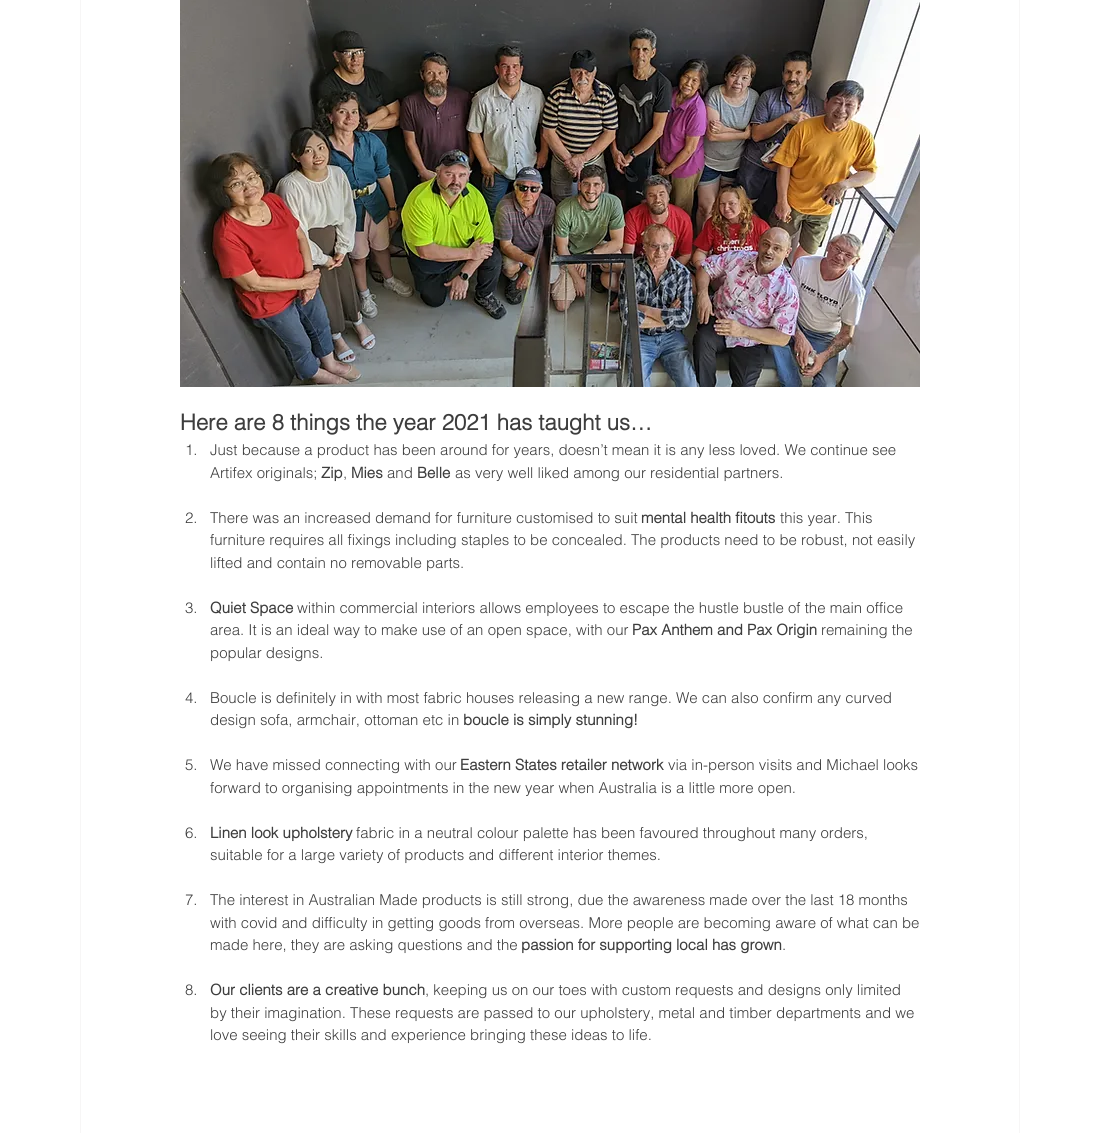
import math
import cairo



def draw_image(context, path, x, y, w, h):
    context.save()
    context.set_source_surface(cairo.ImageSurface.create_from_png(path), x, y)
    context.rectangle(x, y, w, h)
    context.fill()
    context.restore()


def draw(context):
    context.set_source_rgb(1, 1, 1)
    context.paint()
    context.rectangle(80.5, -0.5, 939, 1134)
    context.set_source_rgb(247 / 255, 246 / 255, 246 / 255)
    context.set_line_width(1)
    context.stroke()
    draw_image(context, "images/1.png", 180, 0, 740, 387)
    context.select_font_face("helvetica", cairo.FontSlant.NORMAL, cairo.FontWeight.BOLD)
    context.set_font_size(22)
    context.set_source_rgb(61 / 255, 61 / 255, 61 / 255)
    context.move_to(180, 430)
    context.show_text("Here are 8 things the year 2021 has taught us…")
    context.select_font_face("helvetica Light")
    context.set_font_size(15)
    context.move_to(185, 455)
    context.show_text("1.")
    context.move_to(210, 455)
    context.show_text("Just because a product has been around for years, doesn’t mean it is any less loved. We continue see")
    context.move_to(210, 478)
    context.show_text("Artifex originals;")
    context.select_font_face("helvetica", cairo.FontSlant.NORMAL, cairo.FontWeight.BOLD)
    context.move_to(321, 478)
    context.show_text("Zip")
    context.select_font_face("helvetica Light")
    context.move_to(343, 478)
    context.show_text(",")
    context.select_font_face("helvetica", cairo.FontSlant.NORMAL, cairo.FontWeight.BOLD)
    context.move_to(351, 478)
    context.show_text("Mies")
    context.select_font_face("helvetica Light")
    context.move_to(387, 478)
    context.show_text("and")
    context.select_font_face("helvetica", cairo.FontSlant.NORMAL, cairo.FontWeight.BOLD)
    context.move_to(417, 478)
    context.show_text("Belle")
    context.select_font_face("helvetica Light")
    context.move_to(455, 478)
    context.show_text("as very well liked among our residential partners.")
    context.move_to(185, 523)
    context.show_text("2.")
    context.move_to(210, 523)
    context.show_text("There was an increased demand for furniture customised to suit")
    context.select_font_face("helvetica", cairo.FontSlant.NORMAL, cairo.FontWeight.BOLD)
    context.move_to(641, 523)
    context.show_text("mental health fitouts")
    context.select_font_face("helvetica Light")
    context.move_to(780, 523)
    context.show_text("this year. This")
    context.move_to(210, 545)
    context.show_text("furniture requires all fixings including staples to be concealed. The products need to be robust, not easily")
    context.move_to(210, 568)
    context.show_text("lifted and contain no removable parts.")
    context.move_to(185, 613)
    context.show_text("3.")
    context.select_font_face("helvetica", cairo.FontSlant.NORMAL, cairo.FontWeight.BOLD)
    context.move_to(210, 613)
    context.show_text("Quiet Space")
    context.select_font_face("helvetica Light")
    context.move_to(297, 613)
    context.show_text("within commercial interiors allows employees to escape the hustle bustle of the main office")
    context.move_to(210, 635)
    context.show_text("area. It is an ideal way to make use of an open space, with our")
    context.select_font_face("helvetica", cairo.FontSlant.NORMAL, cairo.FontWeight.BOLD)
    context.move_to(632, 635)
    context.show_text("Pax Anthem and Pax Origin")
    context.select_font_face("helvetica Light")
    context.move_to(821, 635)
    context.show_text("remaining the")
    context.move_to(210, 658)
    context.show_text("popular designs.")
    context.move_to(185, 703)
    context.show_text("4.")
    context.move_to(210, 703)
    context.show_text("Boucle is definitely in with most fabric houses releasing a new range. We can also confirm any curved")
    context.move_to(210, 725)
    context.show_text("design sofa, armchair, ottoman etc in")
    context.select_font_face("helvetica", cairo.FontSlant.NORMAL, cairo.FontWeight.BOLD)
    context.move_to(463, 725)
    context.show_text("boucle is simply stunning!")
    context.select_font_face("helvetica Light")
    context.move_to(185, 770)
    context.show_text("5.")
    context.move_to(210, 770)
    context.show_text("We have missed connecting with our")
    context.select_font_face("helvetica", cairo.FontSlant.NORMAL, cairo.FontWeight.BOLD)
    context.move_to(460, 770)
    context.show_text("Eastern States retailer network")
    context.select_font_face("helvetica Light")
    context.move_to(668, 770)
    context.show_text("via in-person visits and Michael looks")
    context.move_to(210, 793)
    context.show_text("forward to organising appointments in the new year when Australia is a little more open.")
    context.move_to(185, 838)
    context.show_text("6.")
    context.select_font_face("helvetica", cairo.FontSlant.NORMAL, cairo.FontWeight.BOLD)
    context.move_to(210, 838)
    context.show_text("Linen look upholstery")
    context.select_font_face("helvetica Light")
    context.move_to(356, 838)
    context.show_text("fabric in a neutral colour palette has been favoured throughout many orders,")
    context.move_to(210, 860)
    context.show_text("suitable for a large variety of products and different interior themes.")
    context.move_to(185, 905)
    context.show_text("7.")
    context.move_to(210, 905)
    context.show_text("The interest in Australian Made products is still strong, due the awareness made over the last 18 months")
    context.move_to(210, 928)
    context.show_text("with covid and difficulty in getting goods from overseas. More people are becoming aware of what can be")
    context.move_to(210, 950)
    context.show_text("made here, they are asking questions and the")
    context.select_font_face("helvetica", cairo.FontSlant.NORMAL, cairo.FontWeight.BOLD)
    context.move_to(521, 950)
    context.show_text("passion for supporting local has grown")
    context.select_font_face("helvetica Light")
    context.move_to(782, 950)
    context.show_text(".")
    context.move_to(185, 995)
    context.show_text("8.")
    context.select_font_face("helvetica", cairo.FontSlant.NORMAL, cairo.FontWeight.BOLD)
    context.move_to(210, 995)
    context.show_text("Our clients are a creative bunch")
    context.select_font_face("helvetica Light")
    context.move_to(425, 995)
    context.show_text(", keeping us on our toes with custom requests and designs only limited")
    context.move_to(210, 1018)
    context.show_text("by their imagination. These requests are passed to our upholstery, metal and timber departments and we")
    context.move_to(210, 1040)
    context.show_text("love seeing their skills and experience bringing these ideas to life.")


surface = cairo.ImageSurface(cairo.Format.RGB24, 1099, 1133)
context = cairo.Context(surface)
options = cairo.FontOptions()
options.set_hint_metrics(cairo.HintMetrics.OFF)
options.set_hint_style(cairo.HintStyle.NONE)
context.set_font_options(options)
context.set_miter_limit(4)
draw(context)
surface.write_to_png("out.png")
